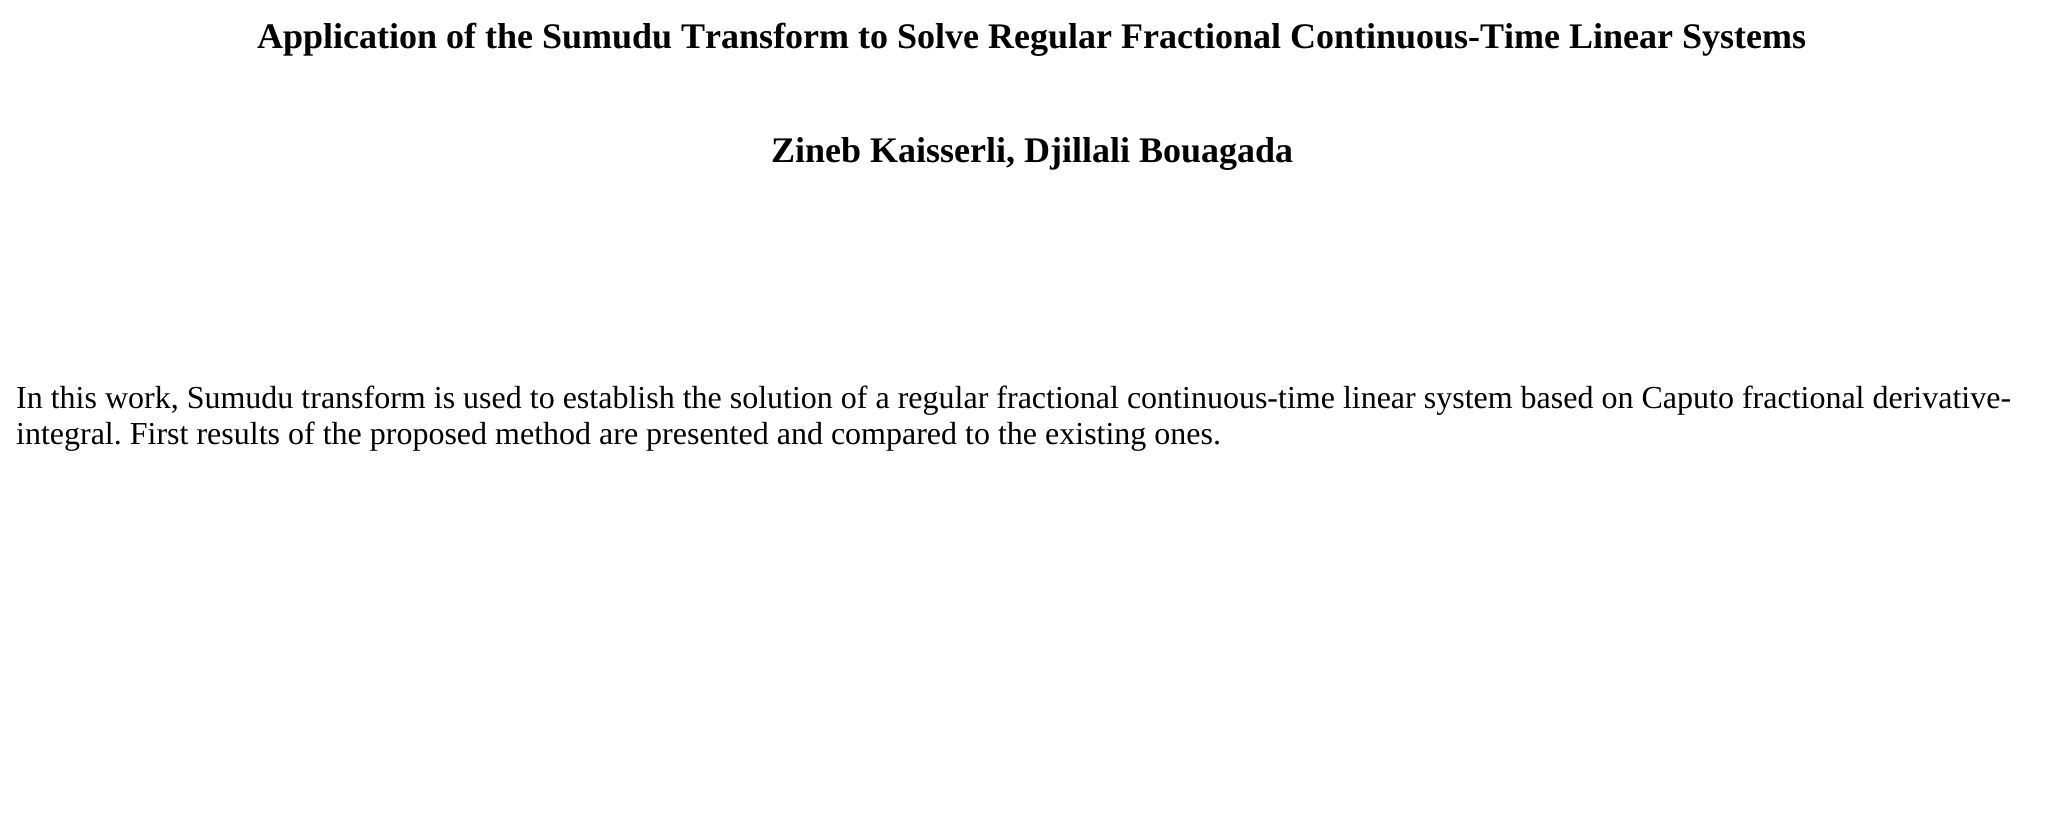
import math
import cairo



def draw(context):
    context.set_source_rgb(1, 1, 1)
    context.paint()
    context.select_font_face("Liberation Serif", cairo.FontSlant.NORMAL, cairo.FontWeight.BOLD)
    context.set_font_size(36)
    context.set_source_rgb(0, 0, 0)
    context.move_to(257, 48)
    context.show_text("Application of the Sumudu Transform to Solve Regular Fractional Continuous-Time Linear Systems")
    context.move_to(771, 162)
    context.show_text("Zineb Kaisserli, Djillali Bouagada")
    context.select_font_face("Liberation Serif")
    context.set_font_size(32)
    context.move_to(16, 408)
    context.show_text("In this work, Sumudu transform is used to establish the solution of a regular fractional continuous-time linear system based on Caputo fractional derivative-")
    context.move_to(16, 444)
    context.show_text("integral. First results of the proposed method are presented and compared to the existing ones.")


surface = cairo.ImageSurface(cairo.Format.RGB24, 2063, 816)
context = cairo.Context(surface)
options = cairo.FontOptions()
options.set_hint_metrics(cairo.HintMetrics.OFF)
options.set_hint_style(cairo.HintStyle.NONE)
context.set_font_options(options)
context.set_miter_limit(4)
draw(context)
surface.write_to_png("out.png")
